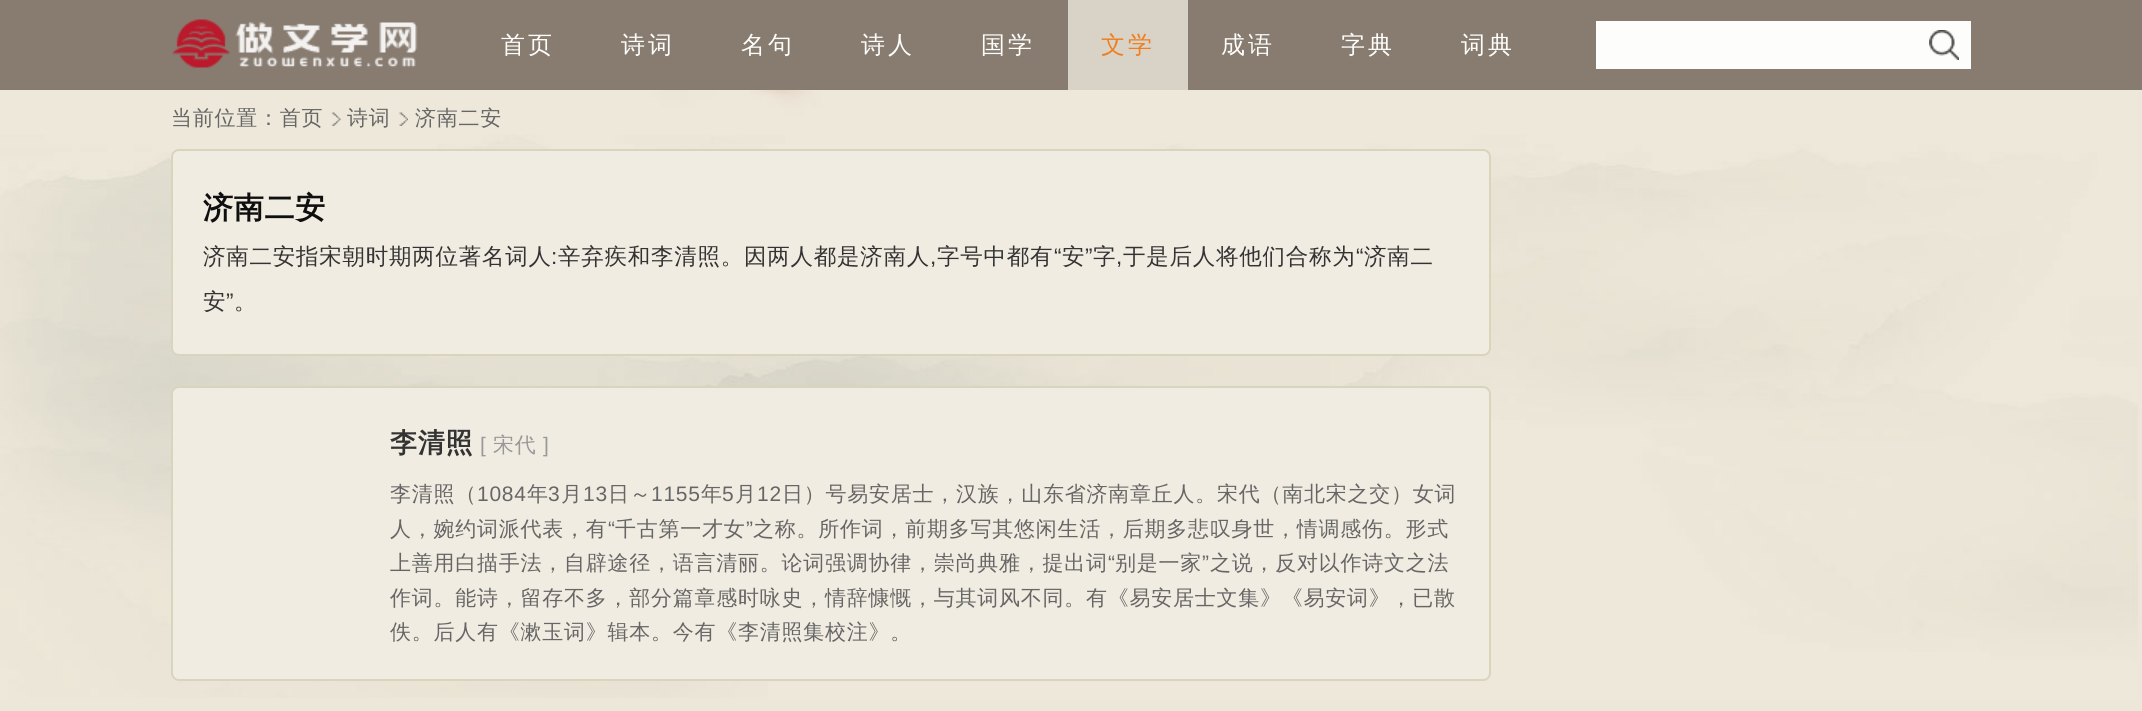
import math
import cairo



def draw_spaced(context, x, y, s, letter, word):
    context.move_to(x, y)
    for ch in s:
        context.show_text(ch)
        context.rel_move_to(letter + word * (ch == ' '), 0)


def rounded_rect(context, x, y, w, h, r):
    context.new_sub_path()
    for i, (u, v) in enumerate([(x + w - r, y + h - r), (x + r, y + h - r), (x + r, y + r), (x + w - r, y + r)]):
        context.arc(u, v, r, i * math.pi / 2, (i + 1) * math.pi / 2)
    context.close_path()


def draw_image(context, path, x, y, w, h):
    context.save()
    context.set_source_surface(cairo.ImageSurface.create_from_png(path), x, y)
    context.rectangle(x, y, w, h)
    context.fill()
    context.restore()


def draw(context):
    context.set_source_rgb(237 / 255, 231 / 255, 217 / 255)
    context.paint()
    context.set_source_rgb(136 / 255, 124 / 255, 113 / 255)
    context.rectangle(0, 0, 2142, 90)
    context.fill()
    draw_image(context, "images/1.png", 172, 19, 246, 49)
    context.set_source_rgb(217 / 255, 210 / 255, 198 / 255)
    context.rectangle(1068, 0, 120, 90)
    context.fill()
    context.set_source_rgb(253 / 255, 253 / 255, 251 / 255)
    context.rectangle(1596, 21, 375, 48)
    context.fill()
    draw_image(context, "images/2.png", 1929, 30, 30, 30)
    draw_image(context, "images/3.png", 0, 90, 2138, 608)
    draw_image(context, "images/4.png", 331, 112, 10, 14)
    draw_image(context, "images/5.png", 399, 112, 9, 14)
    context.set_source_rgb(241 / 255, 236 / 255, 225 / 255)
    rounded_rect(context, 172, 150, 1318, 205, 7)
    context.fill_preserve()
    context.set_source_rgb(215 / 255, 213 / 255, 188 / 255)
    context.stroke()
    context.set_source_rgb(241 / 255, 236 / 255, 225 / 255)
    rounded_rect(context, 172, 387, 1318, 293, 7)
    context.fill_preserve()
    context.set_source_rgb(215 / 255, 213 / 255, 188 / 255)
    context.stroke()
    context.select_font_face("WenQuanYi Zen Hei Medium")
    context.set_font_size(24)
    context.set_source_rgb(253 / 255, 253 / 255, 251 / 255)
    draw_spaced(context, 501, 53, "首页", 3, 0)
    draw_spaced(context, 621, 53, "诗词", 3, 0)
    draw_spaced(context, 741, 53, "名句", 3, 0)
    draw_spaced(context, 861, 53, "诗人", 3, 0)
    draw_spaced(context, 981, 53, "国学", 3, 0)
    context.set_source_rgb(237 / 255, 127 / 255, 33 / 255)
    draw_spaced(context, 1101, 53, "文学", 3, 0)
    context.set_source_rgb(253 / 255, 253 / 255, 251 / 255)
    draw_spaced(context, 1221, 53, "成语", 3, 0)
    draw_spaced(context, 1341, 53, "字典", 3, 0)
    draw_spaced(context, 1461, 53, "词典", 3, 0)
    context.set_font_size(21)
    context.set_source_rgb(102 / 255, 102 / 255, 102 / 255)
    draw_spaced(context, 171, 125, "当前位置：首页", 0.75, 0)
    draw_spaced(context, 347, 125, "诗词", 0.75, 0)
    draw_spaced(context, 415, 125, "济南二安", 0.75, 0)
    context.select_font_face("WenQuanYi Zen Hei", cairo.FontSlant.NORMAL, cairo.FontWeight.BOLD)
    context.set_font_size(30)
    context.set_source_rgb(15 / 255, 15 / 255, 15 / 255)
    draw_spaced(context, 203, 218, "济南二安", 0.75, 0)
    context.select_font_face("WenQuanYi Zen Hei Medium")
    context.set_font_size(22.5)
    context.set_source_rgb(51 / 255, 51 / 255, 51 / 255)
    draw_spaced(context, 203, 264, "济南二安指宋朝时期两位著名词人", 0.75, 0)
    draw_spaced(context, 558, 264, "辛弃疾和李清照。因两人都是济南人", 0.75, 0)
    draw_spaced(context, 937, 264, "字号中都有", 0.75, 0)
    context.select_font_face("Liberation Sans")
    draw_spaced(context, 1054, 264, "“", 0.75, 0)
    context.select_font_face("WenQuanYi Zen Hei Medium")
    draw_spaced(context, 1062, 264, "安", 0.75, 0)
    context.select_font_face("Liberation Sans")
    draw_spaced(context, 1085, 264, "”", 0.75, 0)
    context.select_font_face("WenQuanYi Zen Hei Medium")
    draw_spaced(context, 1093, 264, "字", 0.75, 0)
    draw_spaced(context, 1123, 264, "于是后人将他们合称为", 0.75, 0)
    context.select_font_face("Liberation Sans")
    draw_spaced(context, 1356, 264, "“", 0.75, 0)
    context.select_font_face("WenQuanYi Zen Hei Medium")
    draw_spaced(context, 1364, 264, "济南二", 0.75, 0)
    context.select_font_face("Liberation Sans")
    draw_spaced(context, 551, 264, ":", 0.75, 0)
    draw_spaced(context, 930, 264, ",", 0.75, 0)
    draw_spaced(context, 1116, 264, ",", 0.75, 0)
    context.select_font_face("WenQuanYi Zen Hei Medium")
    draw_spaced(context, 203, 309, "安", 0.75, 0)
    context.select_font_face("Liberation Sans")
    draw_spaced(context, 226, 309, "”", 0.75, 0)
    context.select_font_face("WenQuanYi Zen Hei Medium")
    draw_spaced(context, 234, 309, "。", 0.75, 0)
    context.select_font_face("WenQuanYi Zen Hei", cairo.FontSlant.NORMAL, cairo.FontWeight.BOLD)
    context.set_font_size(27)
    draw_spaced(context, 390, 452, "李清照", 0.75, 0)
    context.select_font_face("Liberation Sans")
    context.set_font_size(21)
    context.set_source_rgb(153 / 255, 153 / 255, 153 / 255)
    draw_spaced(context, 480, 452, "[", 0.75, 0)
    context.select_font_face("WenQuanYi Zen Hei Medium")
    draw_spaced(context, 493, 452, "宋代", 0.75, 0)
    context.select_font_face("Liberation Sans")
    draw_spaced(context, 543, 452, "]", 0.75, 0)
    context.select_font_face("WenQuanYi Zen Hei Medium")
    context.set_source_rgb(102 / 255, 102 / 255, 102 / 255)
    draw_spaced(context, 390, 501, "李清照（", 0.75, 0)
    context.select_font_face("Liberation Sans")
    draw_spaced(context, 477, 501, "1084", 0.75, 0)
    context.select_font_face("WenQuanYi Zen Hei Medium")
    draw_spaced(context, 527, 501, "年", 0.75, 0)
    context.select_font_face("Liberation Sans")
    draw_spaced(context, 548, 501, "3", 0.75, 0)
    context.select_font_face("WenQuanYi Zen Hei Medium")
    draw_spaced(context, 561, 501, "月", 0.75, 0)
    context.select_font_face("Liberation Sans")
    draw_spaced(context, 583, 501, "13", 0.75, 0)
    context.select_font_face("WenQuanYi Zen Hei Medium")
    draw_spaced(context, 608, 501, "日～", 0.75, 0)
    context.select_font_face("Liberation Sans")
    draw_spaced(context, 651, 501, "1155", 0.75, 0)
    context.select_font_face("WenQuanYi Zen Hei Medium")
    draw_spaced(context, 701, 501, "年", 0.75, 0)
    context.select_font_face("Liberation Sans")
    draw_spaced(context, 722, 501, "5", 0.75, 0)
    context.select_font_face("WenQuanYi Zen Hei Medium")
    draw_spaced(context, 735, 501, "月", 0.75, 0)
    context.select_font_face("Liberation Sans")
    draw_spaced(context, 757, 501, "12", 0.75, 0)
    context.select_font_face("WenQuanYi Zen Hei Medium")
    draw_spaced(context, 782, 501, "日）号易安居士，汉族，山东省济南章丘人。宋代（南北宋之交）女词", 0.75, 0)
    draw_spaced(context, 390, 536, "人，婉约词派代表，有", 0.75, 0)
    context.select_font_face("Liberation Sans")
    draw_spaced(context, 608, 536, "“", 0.75, 0)
    context.select_font_face("WenQuanYi Zen Hei Medium")
    draw_spaced(context, 615, 536, "千古第一才女", 0.75, 0)
    context.select_font_face("Liberation Sans")
    draw_spaced(context, 746, 536, "”", 0.75, 0)
    context.select_font_face("WenQuanYi Zen Hei Medium")
    draw_spaced(context, 753, 536, "之称。所作词，前期多写其悠闲生活，后期多悲叹身世，情调感伤。形式", 0.75, 0)
    draw_spaced(context, 390, 570, "上善用白描手法，自辟途径，语言清丽。论词强调协律，崇尚典雅，提出词", 0.75, 0)
    context.select_font_face("Liberation Sans")
    draw_spaced(context, 1108, 570, "“", 0.75, 0)
    context.select_font_face("WenQuanYi Zen Hei Medium")
    draw_spaced(context, 1115, 570, "别是一家", 0.75, 0)
    context.select_font_face("Liberation Sans")
    draw_spaced(context, 1202, 570, "”", 0.75, 0)
    context.select_font_face("WenQuanYi Zen Hei Medium")
    draw_spaced(context, 1210, 570, "之说，反对以作诗文之法", 0.75, 0)
    draw_spaced(context, 390, 605, "作词。能诗，留存不多，部分篇章感时咏史，情辞慷慨，与其词风不同。有《易安居士文集》《易安词》，已散", 0.75, 0)
    draw_spaced(context, 390, 639, "佚。后人有《漱玉词》辑本。今有《李清照集校注》。", 0.75, 0)


surface = cairo.ImageSurface(cairo.Format.RGB24, 2142, 711)
context = cairo.Context(surface)
options = cairo.FontOptions()
options.set_hint_metrics(cairo.HintMetrics.OFF)
options.set_hint_style(cairo.HintStyle.NONE)
context.set_font_options(options)
context.set_miter_limit(4)
draw(context)
surface.write_to_png("out.png")
